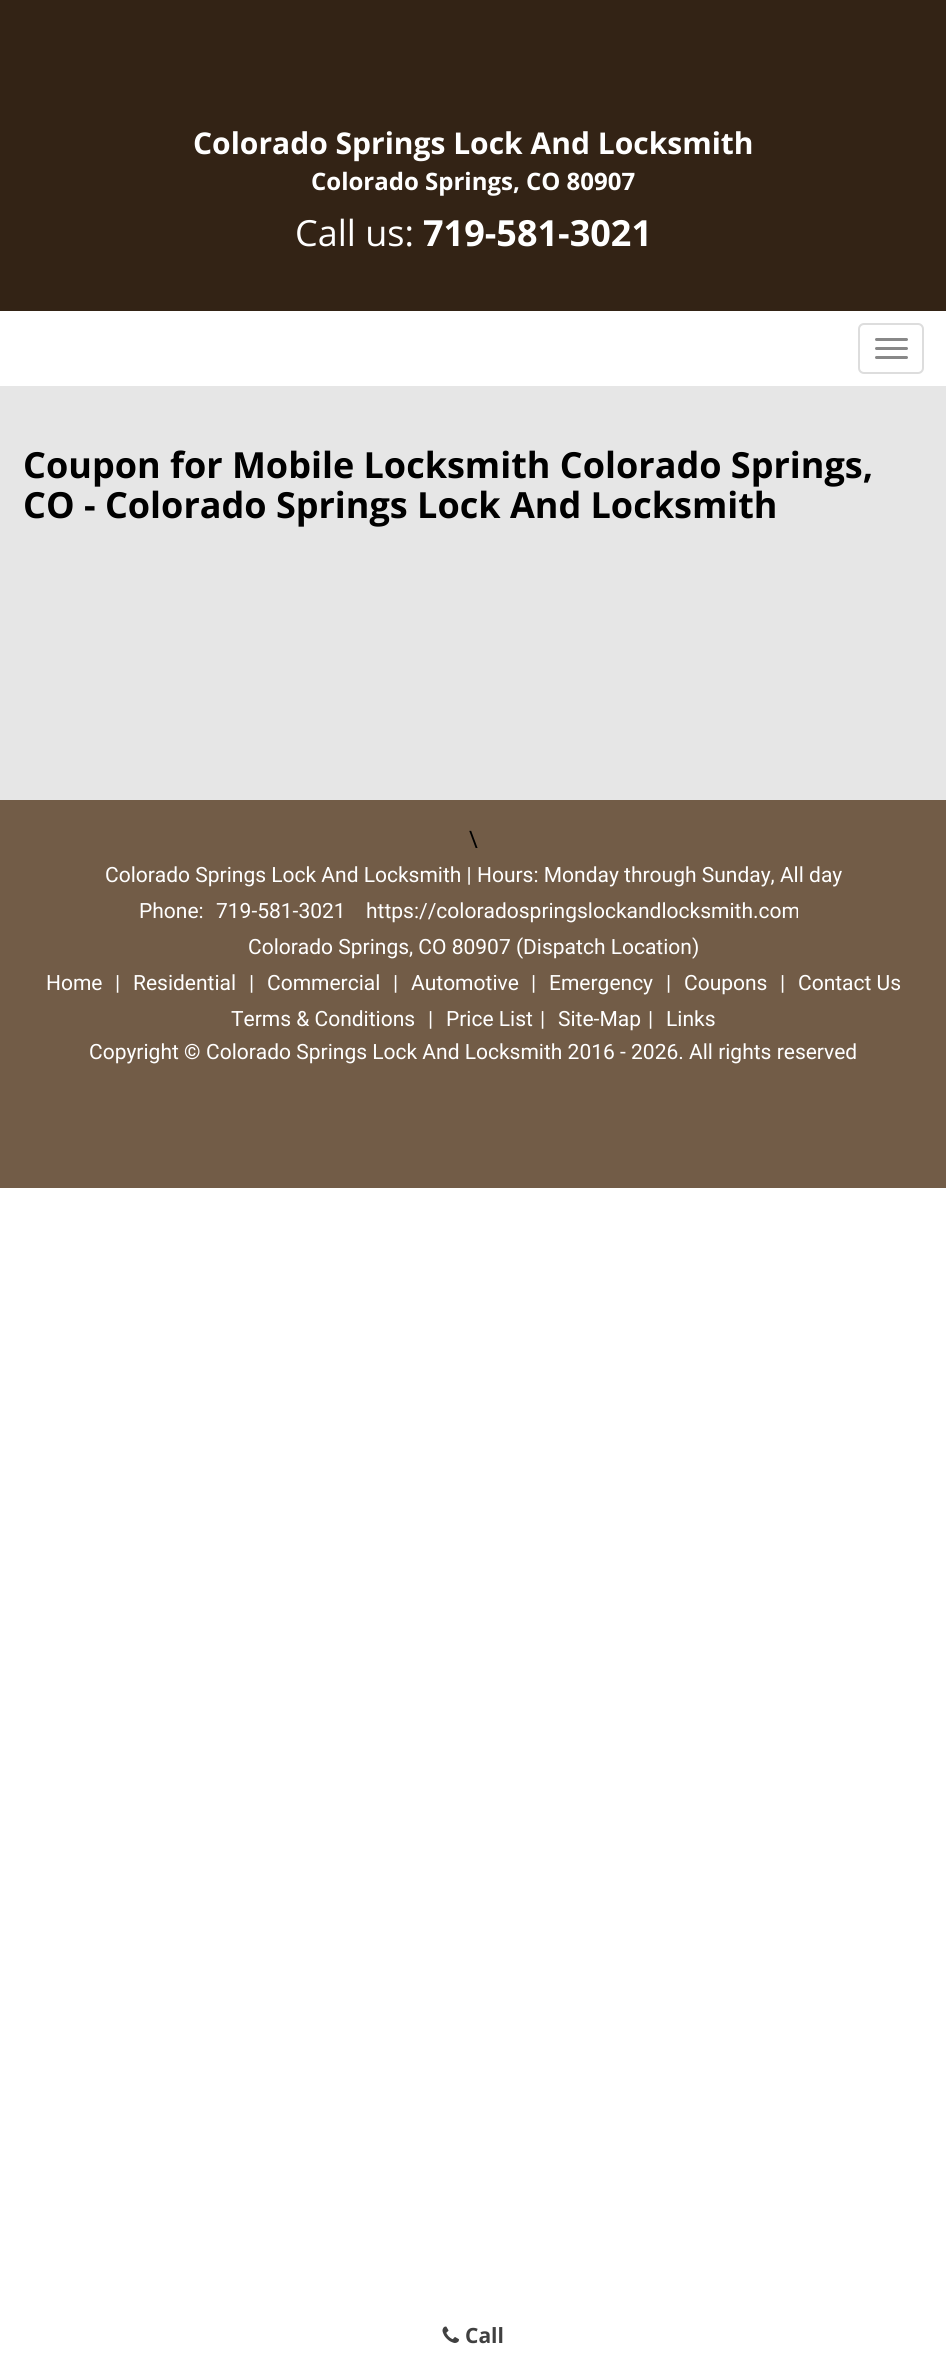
import math
import cairo



def rounded_rect(context, x, y, w, h, r):
    context.new_sub_path()
    for i, (u, v) in enumerate([(x + w - r, y + h - r), (x + r, y + h - r), (x + r, y + r), (x + w - r, y + r)]):
        context.arc(u, v, r, i * math.pi / 2, (i + 1) * math.pi / 2)
    context.close_path()


def draw_image(context, path, x, y, w, h):
    context.save()
    context.set_source_surface(cairo.ImageSurface.create_from_png(path), x, y)
    context.rectangle(x, y, w, h)
    context.fill()
    context.restore()


def draw(context):
    context.set_source_rgb(1, 1, 1)
    context.paint()
    context.set_source_rgb(51 / 255, 35 / 255, 21 / 255)
    context.rectangle(0, 0, 946, 311)
    context.fill()
    rounded_rect(context, 859, 324, 64, 49, 5)
    context.set_source_rgb(221 / 255, 221 / 255, 221 / 255)
    context.stroke()
    context.set_source_rgb(136 / 255, 136 / 255, 136 / 255)
    rounded_rect(context, 875, 338, 33, 3, 1.5)
    context.fill()
    rounded_rect(context, 875, 347, 33, 3, 1.5)
    context.fill()
    rounded_rect(context, 875, 356, 33, 3, 1.5)
    context.fill()
    context.set_source_rgb(230 / 255, 230 / 255, 230 / 255)
    context.rectangle(0, 386, 946, 414)
    context.fill()
    context.set_source_rgb(114 / 255, 92 / 255, 71 / 255)
    context.rectangle(0, 800, 946, 388)
    context.fill()
    draw_image(context, "images/1.png", 442, 2326, 17, 17)
    context.select_font_face("Open Sans", cairo.FontSlant.NORMAL, cairo.FontWeight.BOLD)
    context.set_font_size(30)
    context.set_source_rgb(1, 1, 1)
    context.move_to(193, 154)
    context.show_text("Colorado Springs Lock And Locksmith")
    context.set_font_size(24)
    context.move_to(311, 190)
    context.show_text("Colorado Springs, CO 80907")
    context.select_font_face("Open Sans")
    context.set_font_size(36)
    context.move_to(295, 246)
    context.show_text("Call us:")
    context.select_font_face("Open Sans", cairo.FontSlant.NORMAL, cairo.FontWeight.BOLD)
    context.move_to(423, 246)
    context.show_text("719-581-3021")
    context.set_source_rgb(0, 0, 0)
    context.move_to(23, 478)
    context.show_text("Coupon for Mobile Locksmith Colorado Springs,")
    context.move_to(23, 518)
    context.show_text("CO - Colorado Springs Lock And Locksmith")
    context.select_font_face("Open Sans")
    context.set_font_size(24)
    context.move_to(469, 848)
    context.show_text("\\")
    context.select_font_face("Roboto")
    context.set_font_size(21)
    context.set_source_rgb(1, 1, 1)
    context.move_to(105, 882)
    context.show_text("Colorado Springs Lock And Locksmith | Hours: Monday through Sunday, All day")
    context.move_to(139, 918)
    context.show_text("Phone:")
    context.move_to(216, 918)
    context.show_text("719-581-3021")
    context.move_to(366, 918)
    context.show_text("https://coloradospringslockandlocksmith.com")
    context.move_to(248, 954)
    context.show_text("Colorado Springs, CO 80907 (Dispatch Location)")
    context.move_to(46, 990)
    context.show_text("Home")
    context.move_to(115, 990)
    context.show_text("|")
    context.move_to(133, 990)
    context.show_text("Residential")
    context.move_to(249, 990)
    context.show_text("|")
    context.move_to(267, 990)
    context.show_text("Commercial")
    context.move_to(393, 990)
    context.show_text("|")
    context.move_to(411, 990)
    context.show_text("Automotive")
    context.move_to(531, 990)
    context.show_text("|")
    context.move_to(549, 990)
    context.show_text("Emergency")
    context.move_to(666, 990)
    context.show_text("|")
    context.move_to(684, 990)
    context.show_text("Coupons")
    context.move_to(780, 990)
    context.show_text("|")
    context.move_to(798, 990)
    context.show_text("Contact Us")
    context.move_to(231, 1026)
    context.show_text("Terms & Conditions")
    context.move_to(428, 1026)
    context.show_text("|")
    context.move_to(446, 1026)
    context.show_text("Price List")
    context.move_to(540, 1026)
    context.show_text("|")
    context.move_to(558, 1026)
    context.show_text("Site-Map")
    context.move_to(648, 1026)
    context.show_text("|")
    context.move_to(666, 1026)
    context.show_text("Links")
    context.move_to(89, 1059)
    context.show_text("Copyright")
    context.select_font_face("Roboto", cairo.FontSlant.NORMAL, cairo.FontWeight.BOLD)
    context.move_to(184, 1059)
    context.show_text("©")
    context.select_font_face("Roboto")
    context.move_to(206, 1059)
    context.show_text("Colorado Springs Lock And Locksmith 2016 - 2026. All rights reserved")
    context.select_font_face("Open Sans", cairo.FontSlant.NORMAL, cairo.FontWeight.BOLD)
    context.set_source_rgb(64 / 255, 64 / 255, 64 / 255)
    context.move_to(465, 2343)
    context.show_text("Call")


surface = cairo.ImageSurface(cairo.Format.RGB24, 946, 2378)
context = cairo.Context(surface)
options = cairo.FontOptions()
options.set_hint_metrics(cairo.HintMetrics.OFF)
options.set_hint_style(cairo.HintStyle.NONE)
context.set_font_options(options)
context.set_miter_limit(4)
draw(context)
surface.write_to_png("out.png")
